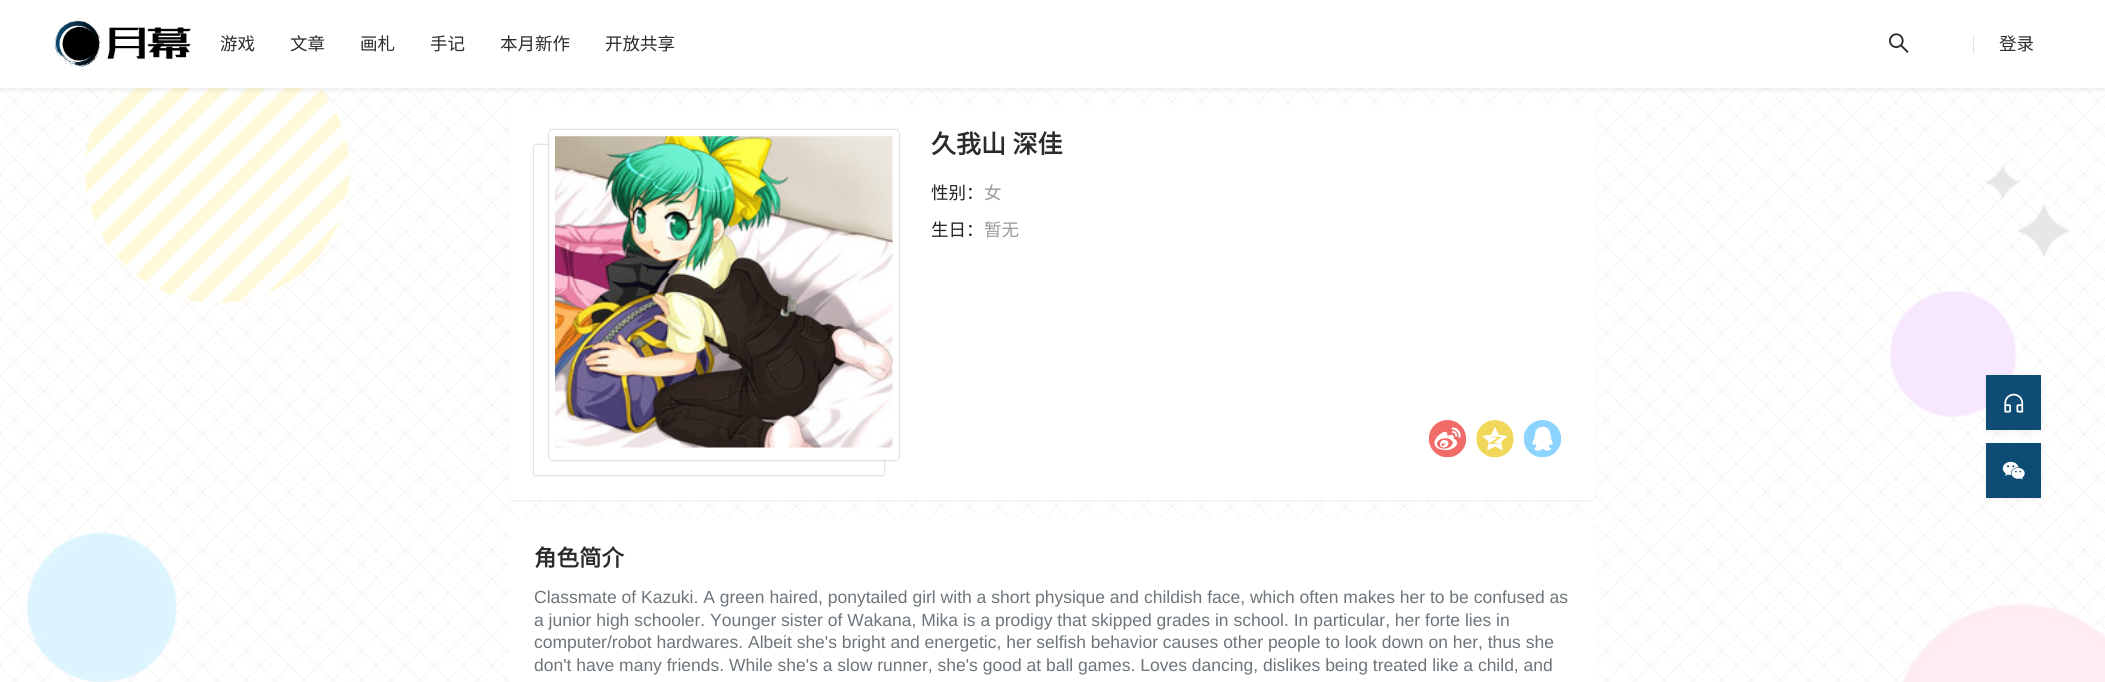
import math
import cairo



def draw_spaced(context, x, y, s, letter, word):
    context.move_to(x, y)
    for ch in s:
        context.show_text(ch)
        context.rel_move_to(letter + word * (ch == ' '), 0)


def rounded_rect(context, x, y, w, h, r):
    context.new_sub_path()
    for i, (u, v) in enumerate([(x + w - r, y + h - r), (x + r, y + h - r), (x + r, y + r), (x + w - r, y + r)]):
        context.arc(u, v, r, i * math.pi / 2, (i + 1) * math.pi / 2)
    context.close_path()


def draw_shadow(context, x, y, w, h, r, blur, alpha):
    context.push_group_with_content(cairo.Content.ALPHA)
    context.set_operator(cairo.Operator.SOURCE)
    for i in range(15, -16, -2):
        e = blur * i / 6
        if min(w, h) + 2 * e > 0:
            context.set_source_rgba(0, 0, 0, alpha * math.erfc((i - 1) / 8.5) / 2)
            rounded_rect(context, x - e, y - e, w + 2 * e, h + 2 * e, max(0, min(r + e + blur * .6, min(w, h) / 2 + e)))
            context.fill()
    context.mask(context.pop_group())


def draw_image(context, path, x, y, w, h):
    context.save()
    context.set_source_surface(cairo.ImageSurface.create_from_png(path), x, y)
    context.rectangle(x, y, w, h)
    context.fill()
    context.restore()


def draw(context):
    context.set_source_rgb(1, 1, 1)
    context.paint()
    draw_image(context, "images/1.png", 0, 88, 2105, 594)
    context.set_source_rgb(0, 0, 0)
    draw_shadow(context, -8, 3, 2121, 87, 0, 2.5, 0.08)
    context.set_source_rgb(1, 1, 1)
    context.rectangle(0, 0, 2105, 88)
    context.fill()
    draw_image(context, "images/2.png", 54, 20, 137, 47)
    draw_image(context, "images/3.png", 1889, 33, 20, 20)
    context.set_source_rgb(222 / 255, 224 / 255, 225 / 255)
    context.rectangle(1973, 35, 1, 19)
    context.fill()
    context.set_source_rgb(0, 0, 0)
    draw_shadow(context, 509, 106, 1087, 395, 5, 1, 0.07)
    context.set_source_rgb(1, 1, 1)
    rounded_rect(context, 509, 105, 1087, 395, 5)
    context.fill()
    context.set_source_rgb(0, 0, 0)
    draw_shadow(context, 534, 145, 350, 330, 1, 1, 0.35)
    context.set_source_rgb(1, 1, 1)
    rounded_rect(context, 534, 145, 350, 330, 1)
    context.fill()
    context.set_source_rgb(0, 0, 0)
    draw_shadow(context, 549, 130, 350, 330, 4, 1, 0.35)
    context.set_source_rgb(1, 1, 1)
    rounded_rect(context, 549.5, 130.5, 349, 329, 3.5)
    context.fill_preserve()
    context.set_line_width(1)
    context.stroke()
    draw_image(context, "images/4.png", 555, 136, 338, 312)
    draw_image(context, "images/5.png", 1429, 420, 37, 38)
    draw_image(context, "images/6.png", 1476, 420, 38, 38)
    draw_image(context, "images/7.png", 1524, 420, 37, 38)
    rounded_rect(context, 509, 518, 1087, 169, 5)
    context.fill()
    context.set_source_rgb(0, 0, 0)
    draw_shadow(context, 1986, 378, 55, 55, 0, 2.5, 0.05)
    context.set_source_rgb(15 / 255, 76 / 255, 117 / 255)
    context.rectangle(1986, 375, 55, 55)
    context.fill()
    draw_image(context, "images/8.png", 2004, 393, 20, 20)
    context.set_source_rgb(0, 0, 0)
    draw_shadow(context, 1986, 445, 55, 55, 0, 2.5, 0.05)
    context.set_source_rgb(15 / 255, 76 / 255, 117 / 255)
    context.rectangle(1986, 443, 55, 55)
    context.fill()
    draw_image(context, "images/9.png", 2002, 461, 23, 19)
    context.select_font_face("Noto Sans CJK SC")
    context.set_font_size(17.5)
    context.set_source_rgb(43 / 255, 43 / 255, 43 / 255)
    context.move_to(220, 50)
    context.show_text("游戏")
    context.move_to(290, 50)
    context.show_text("文章")
    context.move_to(360, 50)
    context.show_text("画札")
    context.move_to(430, 50)
    context.show_text("手记")
    context.move_to(500, 50)
    context.show_text("本月新作")
    context.move_to(605, 50)
    context.show_text("开放共享")
    context.move_to(1999, 50)
    context.show_text("登录")
    context.select_font_face("Noto Sans CJK SC", cairo.FontSlant.NORMAL, cairo.FontWeight.BOLD)
    context.set_font_size(25)
    draw_spaced(context, 931, 153, "久我山 深佳", 0, 1)
    context.select_font_face("Noto Sans CJK SC")
    context.set_font_size(17.5)
    context.set_source_rgb(34 / 255, 34 / 255, 34 / 255)
    context.move_to(931, 199)
    context.show_text("性别：")
    context.set_source_rgb(153 / 255, 153 / 255, 153 / 255)
    context.move_to(984, 199)
    context.show_text("女")
    context.set_source_rgb(34 / 255, 34 / 255, 34 / 255)
    context.move_to(931, 236)
    context.show_text("生日：")
    context.set_source_rgb(153 / 255, 153 / 255, 153 / 255)
    context.move_to(984, 236)
    context.show_text("暂无")
    context.select_font_face("Noto Sans CJK SC", cairo.FontSlant.NORMAL, cairo.FontWeight.BOLD)
    context.set_font_size(22.5)
    context.set_source_rgb(43 / 255, 43 / 255, 43 / 255)
    context.move_to(534, 566)
    context.show_text("角色简介")
    context.select_font_face("Liberation Sans")
    context.set_font_size(17.5)
    context.set_source_rgb(109 / 255, 117 / 255, 122 / 255)
    context.move_to(534, 603)
    context.show_text("Classmate of Kazuki. A green haired, ponytailed girl with a short physique and childish face, which often makes her to be confused as")
    context.move_to(534, 626)
    context.show_text("a junior high schooler. Younger sister of Wakana, Mika is a prodigy that skipped grades in school. In particular, her forte lies in")
    context.move_to(534, 648)
    context.show_text("computer/robot hardwares. Albeit she's bright and energetic, her selfish behavior causes other people to look down on her, thus she")
    context.move_to(534, 671)
    context.show_text("don't have many friends. While she's a slow runner, she's good at ball games. Loves dancing, dislikes being treated like a child, and")


surface = cairo.ImageSurface(cairo.Format.RGB24, 2105, 682)
context = cairo.Context(surface)
options = cairo.FontOptions()
options.set_hint_metrics(cairo.HintMetrics.OFF)
options.set_hint_style(cairo.HintStyle.NONE)
context.set_font_options(options)
context.set_miter_limit(4)
draw(context)
surface.write_to_png("out.png")
